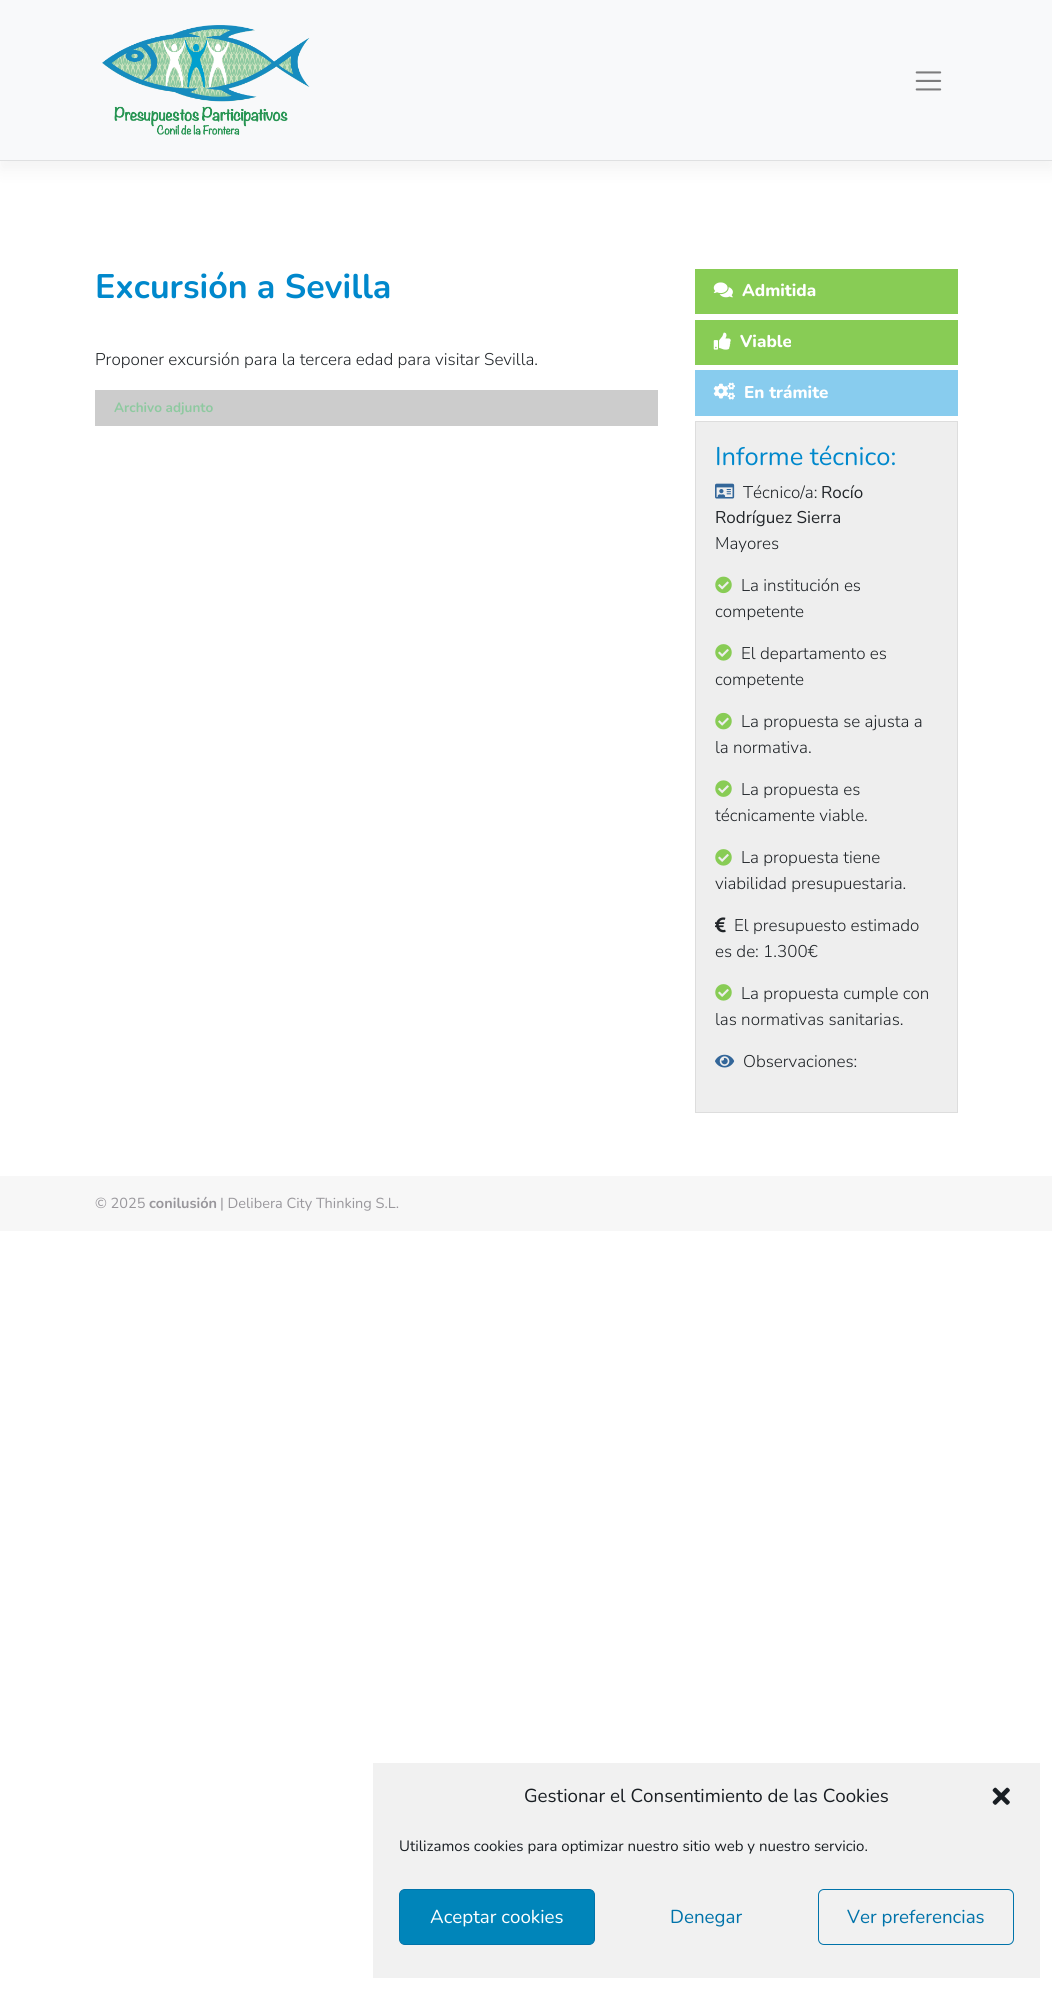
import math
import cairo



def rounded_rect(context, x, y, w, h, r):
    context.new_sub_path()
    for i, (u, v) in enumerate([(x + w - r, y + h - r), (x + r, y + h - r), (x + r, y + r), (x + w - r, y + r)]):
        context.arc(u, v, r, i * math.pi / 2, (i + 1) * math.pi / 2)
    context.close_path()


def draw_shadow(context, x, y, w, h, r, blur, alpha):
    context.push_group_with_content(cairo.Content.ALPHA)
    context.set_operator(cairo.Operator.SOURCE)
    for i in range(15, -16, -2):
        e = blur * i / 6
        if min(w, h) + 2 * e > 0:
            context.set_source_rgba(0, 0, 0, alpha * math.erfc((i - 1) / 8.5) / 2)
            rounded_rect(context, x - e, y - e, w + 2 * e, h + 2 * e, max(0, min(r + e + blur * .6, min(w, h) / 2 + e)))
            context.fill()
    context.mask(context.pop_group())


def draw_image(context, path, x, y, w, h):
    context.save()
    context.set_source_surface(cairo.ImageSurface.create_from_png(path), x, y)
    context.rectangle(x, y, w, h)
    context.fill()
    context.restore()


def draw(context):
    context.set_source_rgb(1, 1, 1)
    context.paint()
    context.set_source_rgb(0, 0, 0)
    draw_shadow(context, 0, 9, 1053, 161, 0, 8.5, 0.05)
    context.set_source_rgb(248 / 255, 249 / 255, 250 / 255)
    context.rectangle(0, 0, 1052, 160)
    context.fill()
    context.set_source_rgb(223 / 255, 224 / 255, 225 / 255)
    context.rectangle(0, 160, 1052, 1)
    context.fill()
    draw_image(context, "images/1.png", 102, 25, 208, 110)
    draw_image(context, "images/2.png", 915, 71, 27, 20)
    context.set_source_rgb(204 / 255, 204 / 255, 204 / 255)
    context.rectangle(95, 390, 563, 36)
    context.fill()
    context.set_source_rgb(136 / 255, 204 / 255, 85 / 255)
    context.rectangle(695, 269, 263, 45)
    context.fill()
    draw_image(context, "images/3.png", 713, 282, 20, 16)
    context.rectangle(695, 320, 263, 45)
    context.fill()
    draw_image(context, "images/4.png", 713, 332, 18, 18)
    context.set_source_rgb(136 / 255, 204 / 255, 238 / 255)
    context.rectangle(695, 370, 263, 46)
    context.fill()
    draw_image(context, "images/5.png", 713, 382, 22, 18)
    context.set_source_rgb(238 / 255, 238 / 255, 238 / 255)
    context.rectangle(695.5, 421.5, 262, 691)
    context.fill_preserve()
    context.set_source_rgb(221 / 255, 221 / 255, 221 / 255)
    context.set_line_width(1)
    context.stroke()
    draw_image(context, "images/6.png", 715, 483, 20, 16)
    draw_image(context, "images/7.png", 715, 576, 17, 18)
    draw_image(context, "images/8.png", 715, 644, 17, 17)
    draw_image(context, "images/9.png", 715, 712, 17, 18)
    draw_image(context, "images/10.png", 715, 780, 17, 17)
    draw_image(context, "images/8.png", 715, 849, 17, 17)
    draw_image(context, "images/11.png", 715, 917, 11, 16)
    draw_image(context, "images/8.png", 715, 984, 17, 17)
    draw_image(context, "images/12.png", 715, 1054, 20, 14)
    context.set_source_rgb(247 / 255, 247 / 255, 247 / 255)
    context.rectangle(0, 1176, 1052, 55)
    context.fill()
    context.set_source_rgb(241 / 255, 241 / 255, 241 / 255)
    context.rectangle(373, 1763, 667, 215)
    context.fill()
    draw_image(context, "images/13.png", 992, 1787, 18, 18)
    context.set_source_rgb(0, 133 / 255, 186 / 255)
    rounded_rect(context, 399.5, 1889.5, 195, 55, 5.5)
    context.fill_preserve()
    context.set_source_rgb(0, 115 / 255, 170 / 255)
    context.stroke()
    rounded_rect(context, 818.5, 1889.5, 195, 55, 5.5)
    context.stroke()
    context.select_font_face("Nunito", cairo.FontSlant.NORMAL, cairo.FontWeight.BOLD)
    context.set_font_size(34)
    context.set_source_rgb(0, 136 / 255, 204 / 255)
    context.move_to(95, 298)
    context.show_text("Excursión a Sevilla")
    context.select_font_face("Nunito Sans Light")
    context.set_font_size(17)
    context.set_source_rgb(33 / 255, 37 / 255, 41 / 255)
    context.move_to(95, 365)
    context.show_text("Proponer excursión para la tercera edad para visitar Sevilla.")
    context.select_font_face("Nunito", cairo.FontSlant.NORMAL, cairo.FontWeight.BOLD)
    context.set_font_size(13.5)
    context.set_source_rgb(142 / 255, 201 / 255, 160 / 255)
    context.move_to(114, 412)
    context.show_text("Archivo adjunto")
    context.select_font_face("Nunito ExtraBold")
    context.set_font_size(17)
    context.set_source_rgb(1, 1, 1)
    context.move_to(742, 296)
    context.show_text("Admitida")
    context.move_to(740, 347)
    context.show_text("Viable")
    context.move_to(744, 398)
    context.show_text("En trámite")
    context.select_font_face("Nunito")
    context.set_font_size(25.5)
    context.set_source_rgb(0, 136 / 255, 204 / 255)
    context.move_to(715, 465)
    context.show_text("Informe técnico:")
    context.select_font_face("Nunito Sans Light")
    context.set_font_size(17)
    context.set_source_rgb(33 / 255, 37 / 255, 41 / 255)
    context.move_to(743, 498)
    context.show_text("Técnico/a:")
    context.select_font_face("Nunito Sans")
    context.move_to(821, 498)
    context.show_text("Rocío")
    context.move_to(715, 523)
    context.show_text("Rodríguez Sierra")
    context.select_font_face("Nunito Sans Light")
    context.move_to(715, 549)
    context.show_text("Mayores")
    context.move_to(741, 591)
    context.show_text("La institución es")
    context.move_to(715, 617)
    context.show_text("competente")
    context.move_to(741, 659)
    context.show_text("El departamento es")
    context.move_to(715, 685)
    context.show_text("competente")
    context.move_to(741, 727)
    context.show_text("La propuesta se ajusta a")
    context.move_to(715, 753)
    context.show_text("la normativa.")
    context.move_to(741, 795)
    context.show_text("La propuesta es")
    context.move_to(715, 821)
    context.show_text("técnicamente viable.")
    context.move_to(741, 863)
    context.show_text("La propuesta tiene")
    context.move_to(715, 889)
    context.show_text("viabilidad presupuestaria.")
    context.move_to(734, 931)
    context.show_text("El presupuesto estimado")
    context.move_to(715, 957)
    context.show_text("es de: 1.300€")
    context.move_to(741, 999)
    context.show_text("La propuesta cumple con")
    context.move_to(715, 1025)
    context.show_text("las normativas sanitarias.")
    context.move_to(743, 1067)
    context.show_text("Observaciones:")
    context.select_font_face("Nunito")
    context.set_font_size(14.5)
    context.set_source_rgb(153 / 255, 151 / 255, 156 / 255)
    context.move_to(95, 1208)
    context.show_text("© 2025")
    context.select_font_face("Nunito", cairo.FontSlant.NORMAL, cairo.FontWeight.BOLD)
    context.move_to(149, 1208)
    context.show_text("conilusión")
    context.select_font_face("Nunito")
    context.move_to(220, 1208)
    context.show_text("| Delibera City Thinking S.L.")
    context.set_font_size(18.75)
    context.set_source_rgb(25 / 255, 30 / 255, 35 / 255)
    context.move_to(524, 1802)
    context.show_text("Gestionar el Consentimiento de las Cookies")
    context.set_font_size(15)
    context.move_to(399, 1851)
    context.show_text("Utilizamos cookies para optimizar nuestro sitio web y nuestro servicio.")
    context.set_font_size(18.75)
    context.set_source_rgb(1, 1, 1)
    context.move_to(430, 1923)
    context.show_text("Aceptar cookies")
    context.set_source_rgb(0, 115 / 255, 170 / 255)
    context.move_to(670, 1923)
    context.show_text("Denegar")
    context.move_to(847, 1923)
    context.show_text("Ver preferencias")


surface = cairo.ImageSurface(cairo.Format.RGB24, 1052, 1989)
context = cairo.Context(surface)
options = cairo.FontOptions()
options.set_hint_metrics(cairo.HintMetrics.OFF)
options.set_hint_style(cairo.HintStyle.NONE)
context.set_font_options(options)
context.set_miter_limit(4)
draw(context)
surface.write_to_png("out.png")
